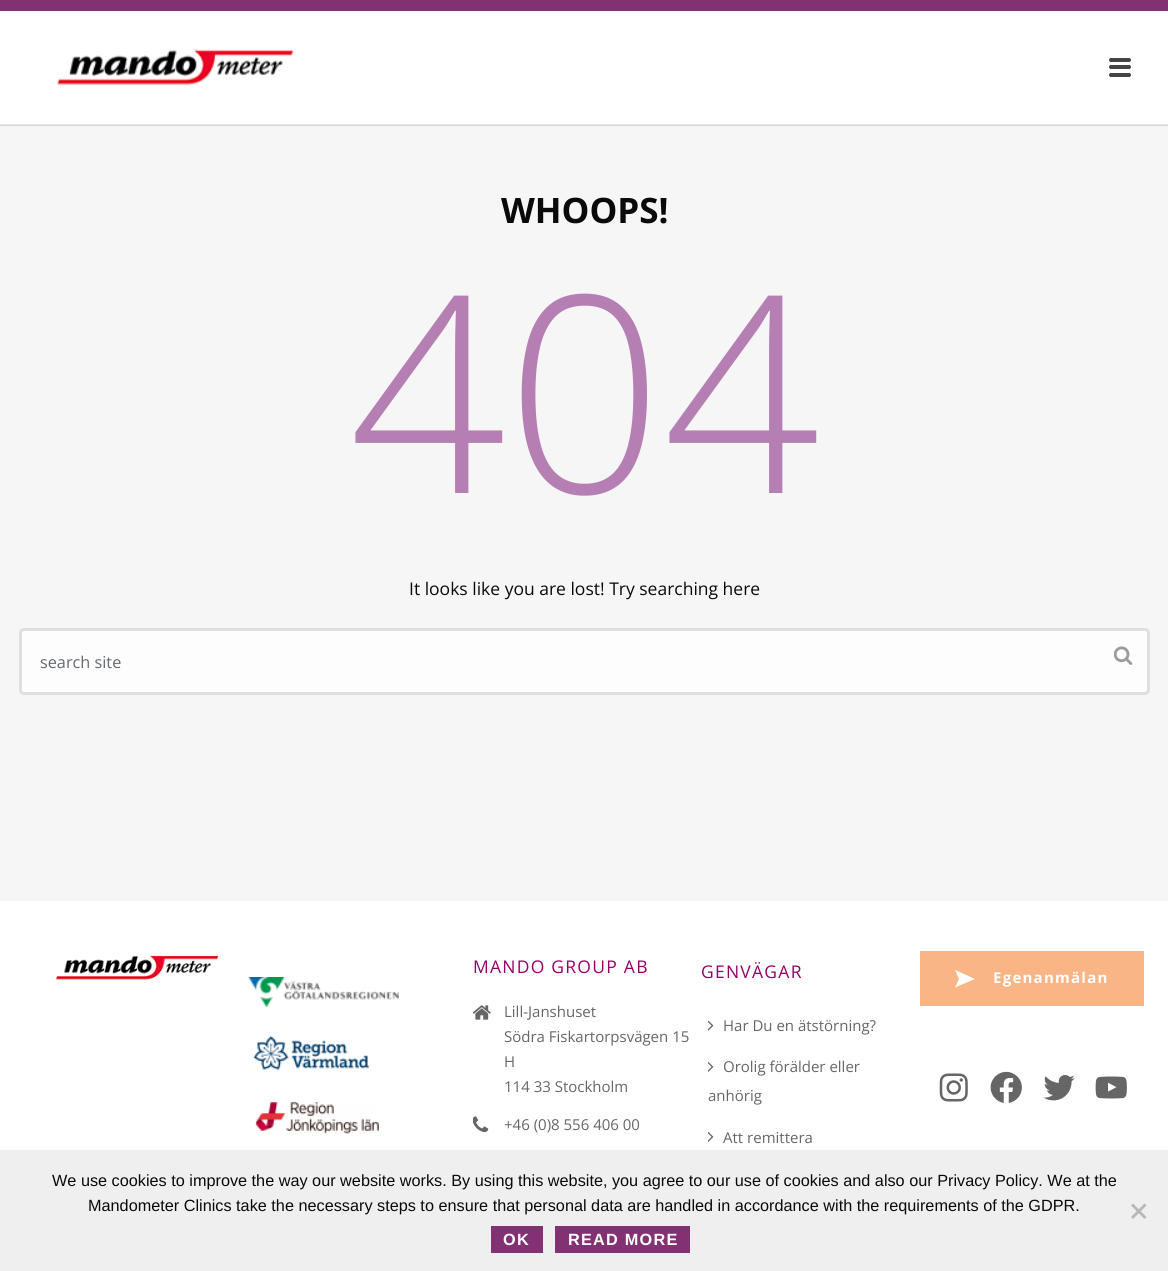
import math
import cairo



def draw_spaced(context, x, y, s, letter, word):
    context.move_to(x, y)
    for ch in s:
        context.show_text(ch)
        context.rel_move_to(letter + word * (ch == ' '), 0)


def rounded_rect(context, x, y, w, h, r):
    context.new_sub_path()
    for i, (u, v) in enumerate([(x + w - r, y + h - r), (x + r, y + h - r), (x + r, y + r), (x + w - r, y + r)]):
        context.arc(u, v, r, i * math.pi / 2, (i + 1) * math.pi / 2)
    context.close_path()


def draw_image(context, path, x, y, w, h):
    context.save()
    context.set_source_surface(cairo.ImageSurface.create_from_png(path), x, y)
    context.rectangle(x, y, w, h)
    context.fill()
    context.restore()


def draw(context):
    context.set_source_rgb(1, 1, 1)
    context.paint()
    context.set_source_rgb(214 / 255, 214 / 255, 214 / 255)
    context.rectangle(0, 125, 1168, 1)
    context.fill()
    context.set_source_rgb(130 / 255, 50 / 255, 112 / 255)
    context.rectangle(0, 0, 1168, 11)
    context.fill()
    context.set_source_rgb(234 / 255, 234 / 255, 234 / 255)
    context.rectangle(0, 124, 1168, 1)
    context.fill()
    draw_image(context, "images/1.png", 57, 49, 237, 36)
    context.set_source_rgb(68 / 255, 68 / 255, 68 / 255)
    rounded_rect(context, 1109, 58, 22, 4, 2)
    context.fill()
    rounded_rect(context, 1109, 65, 22, 4, 2)
    context.fill()
    rounded_rect(context, 1109, 73, 22, 4, 2)
    context.fill()
    context.set_source_rgb(246 / 255, 246 / 255, 246 / 255)
    context.rectangle(0, 126, 1168, 775)
    context.fill()
    context.set_source_rgb(253 / 255, 253 / 255, 253 / 255)
    rounded_rect(context, 19, 628, 1131, 67, 5)
    context.fill()
    rounded_rect(context, 20.5, 629.5, 1128, 64, 3.5)
    context.set_source_rgba(0, 0, 0, 0.12)
    context.set_line_width(3)
    context.stroke()
    draw_image(context, "images/2.png", 1114, 646, 19, 19)
    draw_image(context, "images/3.png", 56, 955, 163, 25)
    draw_image(context, "images/4.png", 248, 977, 151, 30)
    draw_image(context, "images/5.png", 253, 1035, 116, 35)
    draw_image(context, "images/6.png", 255, 1101, 124, 33)
    draw_image(context, "images/7.png", 473, 1005, 18, 15)
    draw_image(context, "images/8.png", 473, 1116, 16, 17)
    draw_image(context, "images/9.png", 708, 1020, 6, 11)
    draw_image(context, "images/10.png", 708, 1062, 6, 10)
    draw_image(context, "images/10.png", 708, 1132, 6, 10)
    context.set_source_rgb(249 / 255, 181 / 255, 133 / 255)
    context.rectangle(920, 951, 224, 55)
    context.fill()
    context.set_source_rgb(1, 1, 1)
    context.new_path()
    context.move_to(975, 979)
    context.line_to(955, 970)
    context.line_to(959, 979)
    context.line_to(955, 987.5)
    context.close_path()
    context.fill()
    draw_image(context, "images/11.png", 939, 1073, 29, 29)
    draw_image(context, "images/12.png", 990, 1071, 32, 32)
    draw_image(context, "images/13.png", 1043, 1075, 32, 26)
    draw_image(context, "images/14.png", 1095, 1076, 32, 23)
    context.set_source_rgb(239 / 255, 239 / 255, 239 / 255)
    context.rectangle(0, 1150, 1168, 121)
    context.fill()
    context.set_source_rgb(184 / 255, 184 / 255, 184 / 255)
    context.new_path()
    context.move_to(1144.5, 1203.5)
    context.line_to(1146.5, 1205.5)
    context.line_to(1133, 1219)
    context.line_to(1131, 1217)
    context.close_path()
    context.fill()
    context.new_path()
    context.move_to(1131, 1205.5)
    context.line_to(1133, 1203.5)
    context.line_to(1146.5, 1217)
    context.line_to(1144.5, 1219)
    context.close_path()
    context.fill()
    context.set_source_rgb(130 / 255, 50 / 255, 115 / 255)
    context.rectangle(491, 1226, 52, 27)
    context.fill()
    context.rectangle(555, 1226, 135, 27)
    context.fill()
    context.select_font_face("Open Sans", cairo.FontSlant.NORMAL, cairo.FontWeight.BOLD)
    context.set_font_size(35)
    context.set_source_rgb(10 / 255, 10 / 255, 10 / 255)
    context.move_to(501, 223)
    context.show_text("WHOOPS!")
    context.select_font_face("Open Sans Light")
    context.set_font_size(275)
    context.set_source_rgb(181 / 255, 127 / 255, 179 / 255)
    context.move_to(349, 493)
    context.show_text("404")
    context.select_font_face("Open Sans")
    context.set_font_size(17.5)
    context.set_source_rgb(10 / 255, 10 / 255, 10 / 255)
    context.move_to(409, 595)
    context.show_text("It looks like you are lost! Try searching here")
    context.set_font_size(16.25)
    context.set_source_rgb(100 / 255, 105 / 255, 112 / 255)
    context.move_to(40, 668)
    context.show_text("search site")
    context.set_font_size(17.5)
    context.set_source_rgb(153 / 255, 0, 102 / 255)
    draw_spaced(context, 473, 973, "MANDO GROUP AB", 1.25, 0)
    context.set_font_size(15)
    context.set_source_rgb(102 / 255, 102 / 255, 102 / 255)
    context.move_to(504, 1017)
    context.show_text("Lill-Janshuset")
    context.move_to(504, 1042)
    context.show_text("Södra Fiskartorpsvägen 15")
    context.move_to(504, 1067)
    context.show_text("H")
    context.move_to(504, 1092)
    context.show_text("114 33 Stockholm")
    context.move_to(504, 1130)
    context.show_text("+46 (0)8 556 406 00")
    context.set_font_size(17.5)
    context.set_source_rgb(153 / 255, 0, 102 / 255)
    draw_spaced(context, 701, 978, "GENVÄGAR", 1.25, 0)
    context.set_font_size(15)
    context.set_source_rgb(102 / 255, 102 / 255, 102 / 255)
    context.move_to(723, 1031)
    context.show_text("Har Du en ätstörning?")
    context.move_to(723, 1072)
    context.show_text("Orolig förälder eller")
    context.move_to(708, 1101)
    context.show_text("anhörig")
    context.move_to(723, 1143)
    context.show_text("Att remittera")
    context.select_font_face("Open Sans", cairo.FontSlant.NORMAL, cairo.FontWeight.BOLD)
    context.set_source_rgb(1, 1, 1)
    draw_spaced(context, 993, 983, "Egenanmälan", 1.25, 0)
    context.select_font_face("Liberation Sans")
    context.set_font_size(16.25)
    context.set_source_rgb(10 / 255, 10 / 255, 10 / 255)
    context.move_to(52, 1186)
    context.show_text("We use cookies to improve the way our website works. By using this website, you agree to our use of cookies and also our Privacy Policy. We at the")
    context.move_to(88, 1211)
    context.show_text("Mandometer Clinics take the necessary steps to ensure that personal data are handled in accordance with the requirements of the GDPR.")
    context.select_font_face("Liberation Sans", cairo.FontSlant.NORMAL, cairo.FontWeight.BOLD)
    context.set_source_rgb(1, 1, 1)
    draw_spaced(context, 503, 1245, "OK", 1.25, 0)
    draw_spaced(context, 568, 1245, "READ MORE", 1.25, 0)


surface = cairo.ImageSurface(cairo.Format.RGB24, 1168, 1271)
context = cairo.Context(surface)
options = cairo.FontOptions()
options.set_hint_metrics(cairo.HintMetrics.OFF)
options.set_hint_style(cairo.HintStyle.NONE)
context.set_font_options(options)
context.set_miter_limit(4)
draw(context)
surface.write_to_png("out.png")
